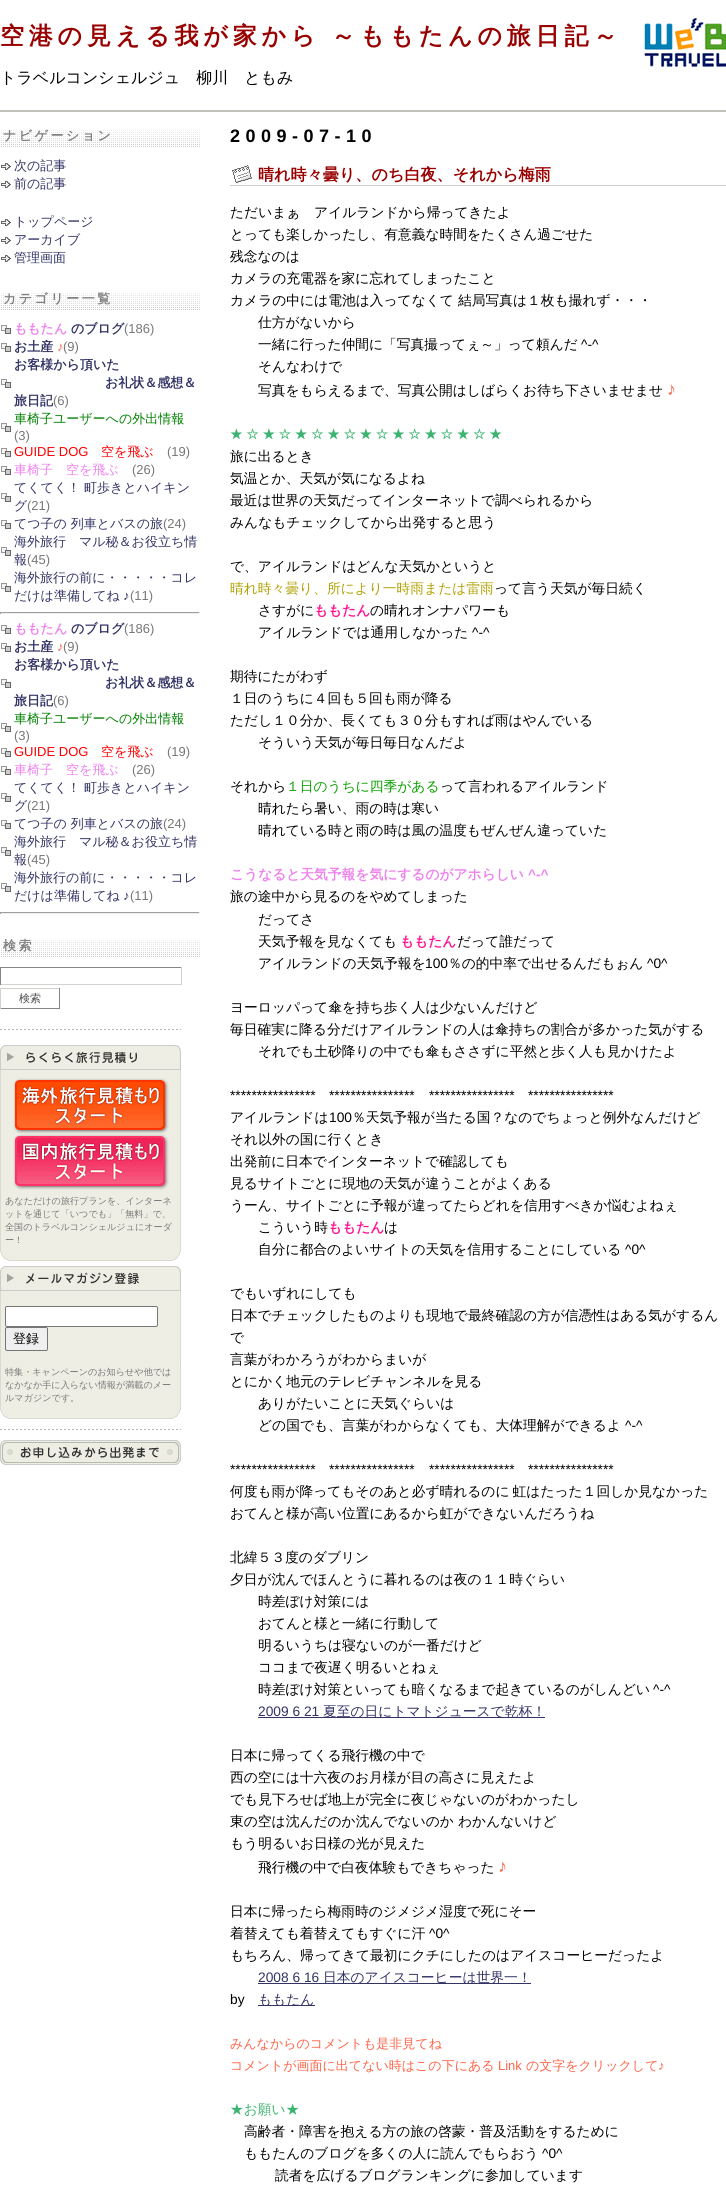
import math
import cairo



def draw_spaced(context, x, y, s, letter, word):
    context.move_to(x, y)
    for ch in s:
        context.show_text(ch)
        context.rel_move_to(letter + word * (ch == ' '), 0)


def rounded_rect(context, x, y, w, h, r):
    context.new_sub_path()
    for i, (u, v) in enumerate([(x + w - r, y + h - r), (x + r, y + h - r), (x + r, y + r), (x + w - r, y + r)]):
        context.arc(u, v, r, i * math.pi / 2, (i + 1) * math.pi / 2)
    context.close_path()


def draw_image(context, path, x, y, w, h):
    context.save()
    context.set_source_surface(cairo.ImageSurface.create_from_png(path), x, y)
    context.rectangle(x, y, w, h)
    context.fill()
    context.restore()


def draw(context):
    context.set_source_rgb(1, 1, 1)
    context.paint()
    draw_image(context, "images/1.png", 635, 17, 91, 53)
    context.set_source_rgb(194 / 255, 194 / 255, 186 / 255)
    context.rectangle(0, 110, 726, 2)
    context.fill()
    draw_image(context, "images/2.png", 1, 130, 199, 17)
    draw_image(context, "images/3.png", 1, 163, 10, 7)
    draw_image(context, "images/3.png", 1, 181, 10, 7)
    draw_image(context, "images/3.png", 1, 219, 10, 7)
    draw_image(context, "images/3.png", 1, 237, 10, 7)
    draw_image(context, "images/3.png", 1, 255, 10, 7)
    draw_image(context, "images/2.png", 1, 293, 199, 17)
    draw_image(context, "images/4.png", 1, 325, 10, 9)
    draw_image(context, "images/4.png", 1, 343, 10, 9)
    draw_image(context, "images/4.png", 1, 379, 10, 9)
    draw_image(context, "images/4.png", 1, 423, 10, 9)
    draw_image(context, "images/4.png", 1, 448, 10, 9)
    draw_image(context, "images/4.png", 1, 466, 10, 9)
    draw_image(context, "images/4.png", 1, 493, 10, 9)
    draw_image(context, "images/4.png", 1, 520, 10, 9)
    draw_image(context, "images/4.png", 1, 547, 10, 9)
    draw_image(context, "images/4.png", 1, 583, 10, 9)
    context.set_source_rgb(159 / 255, 159 / 255, 159 / 255)
    context.rectangle(0, 612, 200, 1)
    context.fill()
    context.set_source_rgb(238 / 255, 238 / 255, 238 / 255)
    context.rectangle(199, 612, 1, 2)
    context.fill()
    context.rectangle(0, 613, 200, 1)
    context.fill()
    context.set_source_rgb(159 / 255, 159 / 255, 159 / 255)
    context.rectangle(0, 612, 1, 2)
    context.fill()
    draw_image(context, "images/4.png", 1, 625, 10, 9)
    draw_image(context, "images/4.png", 1, 643, 10, 9)
    draw_image(context, "images/4.png", 1, 679, 10, 9)
    draw_image(context, "images/4.png", 1, 723, 10, 9)
    draw_image(context, "images/4.png", 1, 748, 10, 9)
    draw_image(context, "images/4.png", 1, 766, 10, 9)
    draw_image(context, "images/4.png", 1, 793, 10, 9)
    draw_image(context, "images/4.png", 1, 820, 10, 9)
    draw_image(context, "images/4.png", 1, 847, 10, 9)
    draw_image(context, "images/4.png", 1, 883, 10, 9)
    context.rectangle(0, 912, 200, 1)
    context.fill()
    context.set_source_rgb(238 / 255, 238 / 255, 238 / 255)
    context.rectangle(199, 912, 1, 2)
    context.fill()
    context.rectangle(0, 913, 200, 1)
    context.fill()
    context.set_source_rgb(159 / 255, 159 / 255, 159 / 255)
    context.rectangle(0, 912, 1, 2)
    context.fill()
    draw_image(context, "images/2.png", 1, 940, 199, 17)
    context.set_source_rgb(134 / 255, 134 / 255, 134 / 255)
    context.rectangle(0, 967, 182, 1)
    context.fill()
    context.set_source_rgb(212 / 255, 210 / 255, 207 / 255)
    context.rectangle(181, 967, 1, 18)
    context.fill()
    context.rectangle(0, 984, 182, 1)
    context.fill()
    context.set_source_rgb(134 / 255, 134 / 255, 134 / 255)
    context.rectangle(0, 967, 1, 18)
    context.fill()
    context.set_source_rgb(212 / 255, 210 / 255, 207 / 255)
    context.rectangle(0, 988, 60, 1)
    context.fill()
    context.set_source_rgb(134 / 255, 134 / 255, 134 / 255)
    context.rectangle(59, 988, 1, 21)
    context.fill()
    context.rectangle(0, 1008, 60, 1)
    context.fill()
    context.set_source_rgb(212 / 255, 210 / 255, 207 / 255)
    context.rectangle(0, 988, 1, 21)
    context.fill()
    draw_image(context, "images/5.png", 0, 1029, 181, 1)
    draw_image(context, "images/6.png", 0, 1045, 181, 25)
    draw_image(context, "images/7.png", 0, 1070, 181, 8)
    draw_image(context, "images/8.png", 0, 1078, 181, 112)
    draw_image(context, "images/9.png", 13, 1078, 156, 56)
    draw_image(context, "images/10.png", 13, 1134, 156, 56)
    draw_image(context, "images/11.png", 0, 1190, 181, 62)
    draw_image(context, "images/12.png", 0, 1252, 181, 9)
    draw_image(context, "images/13.png", 0, 1266, 181, 25)
    draw_image(context, "images/14.png", 0, 1291, 181, 5)
    draw_image(context, "images/15.png", 0, 1296, 181, 65)
    context.set_source_rgb(1, 1, 1)
    rounded_rect(context, 5.5, 1306.5, 152, 20, 1.5)
    context.fill_preserve()
    context.set_source_rgb(118 / 255, 118 / 255, 118 / 255)
    context.set_line_width(1)
    context.stroke()
    context.set_source_rgb(239 / 255, 239 / 255, 239 / 255)
    rounded_rect(context, 5.5, 1327.5, 42, 23, 1.5)
    context.fill_preserve()
    context.set_source_rgb(118 / 255, 118 / 255, 118 / 255)
    context.stroke()
    draw_image(context, "images/16.png", 0, 1361, 181, 49)
    draw_image(context, "images/12.png", 0, 1410, 181, 9)
    draw_image(context, "images/5.png", 0, 1429, 181, 1)
    draw_image(context, "images/17.png", 0, 1440, 181, 25)
    draw_image(context, "images/18.png", 232, 165, 20, 18)
    context.set_source_rgb(204 / 255, 204 / 255, 204 / 255)
    context.rectangle(230, 185, 496, 1)
    context.fill()
    context.set_source_rgb(51 / 255, 51 / 255, 102 / 255)
    context.rectangle(258, 1717, 287, 1)
    context.fill()
    context.rectangle(258, 1983, 273, 1)
    context.fill()
    context.rectangle(258, 2005, 57, 1)
    context.fill()
    context.select_font_face("WenQuanYi Zen Hei", cairo.FontSlant.NORMAL, cairo.FontWeight.BOLD)
    context.set_font_size(24)
    context.set_source_rgb(153 / 255, 0, 0)
    draw_spaced(context, 0, 44, "空港の見える我が家から ～ももたんの旅日記～", 4.8, -1)
    context.select_font_face("WenQuanYi Zen Hei Medium")
    context.set_font_size(16)
    context.set_source_rgb(0, 0, 0)
    context.move_to(0, 83)
    context.show_text("トラベルコンシェルジュ　柳川　ともみ")
    context.select_font_face("WenQuanYi Zen Hei", cairo.FontSlant.NORMAL, cairo.FontWeight.BOLD)
    context.set_font_size(13)
    context.set_source_rgb(128 / 255, 128 / 255, 128 / 255)
    draw_spaced(context, 3, 140, "ナビゲーション", 2.5, 0)
    context.select_font_face("WenQuanYi Zen Hei Medium")
    context.set_source_rgb(51 / 255, 51 / 255, 102 / 255)
    context.move_to(14, 170)
    context.show_text("次の記事")
    context.move_to(14, 188)
    context.show_text("前の記事")
    context.move_to(14, 226)
    context.show_text("トップページ")
    context.move_to(14, 244)
    context.show_text("アーカイブ")
    context.move_to(14, 262)
    context.show_text("管理画面")
    context.select_font_face("WenQuanYi Zen Hei", cairo.FontSlant.NORMAL, cairo.FontWeight.BOLD)
    context.set_source_rgb(128 / 255, 128 / 255, 128 / 255)
    draw_spaced(context, 3, 303, "カテゴリー一覧", 2.5, 0)
    context.set_source_rgb(238 / 255, 130 / 255, 238 / 255)
    context.move_to(14, 333)
    context.show_text("ももたん")
    context.set_source_rgb(51 / 255, 51 / 255, 102 / 255)
    context.move_to(71, 333)
    context.show_text("のブログ")
    context.select_font_face("Liberation Sans")
    context.set_source_rgb(119 / 255, 119 / 255, 119 / 255)
    context.move_to(124, 333)
    context.show_text("(186)")
    context.select_font_face("WenQuanYi Zen Hei", cairo.FontSlant.NORMAL, cairo.FontWeight.BOLD)
    context.set_source_rgb(51 / 255, 51 / 255, 102 / 255)
    context.move_to(14, 351)
    context.show_text("お土産")
    context.select_font_face("Liberation Sans", cairo.FontSlant.NORMAL, cairo.FontWeight.BOLD)
    context.set_source_rgb(1, 99 / 255, 71 / 255)
    context.move_to(57, 351)
    context.show_text("♪")
    context.select_font_face("Liberation Sans")
    context.set_source_rgb(119 / 255, 119 / 255, 119 / 255)
    context.move_to(63, 351)
    context.show_text("(9)")
    context.select_font_face("WenQuanYi Zen Hei", cairo.FontSlant.NORMAL, cairo.FontWeight.BOLD)
    context.set_source_rgb(51 / 255, 51 / 255, 102 / 255)
    context.move_to(14, 369)
    context.show_text("お客様から頂いた")
    context.move_to(105, 387)
    context.show_text("お礼状＆感想＆")
    context.move_to(14, 405)
    context.show_text("旅日記")
    context.select_font_face("Liberation Sans")
    context.set_source_rgb(119 / 255, 119 / 255, 119 / 255)
    context.move_to(53, 405)
    context.show_text("(6)")
    context.select_font_face("WenQuanYi Zen Hei Medium")
    context.set_source_rgb(0, 128 / 255, 0)
    context.move_to(14, 423)
    context.show_text("車椅子ユーザーへの外出情報")
    context.select_font_face("Liberation Sans")
    context.set_source_rgb(119 / 255, 119 / 255, 119 / 255)
    context.move_to(14, 440)
    context.show_text("(3)")
    context.set_source_rgb(1, 0, 0)
    context.move_to(14, 456)
    context.show_text("GUIDE DOG")
    context.select_font_face("WenQuanYi Zen Hei Medium")
    context.move_to(101, 456)
    context.show_text("空を飛ぶ")
    context.select_font_face("Liberation Sans")
    context.set_source_rgb(119 / 255, 119 / 255, 119 / 255)
    context.move_to(167, 456)
    context.show_text("(19)")
    context.select_font_face("WenQuanYi Zen Hei Medium")
    context.set_source_rgb(238 / 255, 130 / 255, 238 / 255)
    context.move_to(14, 474)
    context.show_text("車椅子　空を飛ぶ")
    context.select_font_face("Liberation Sans")
    context.set_source_rgb(119 / 255, 119 / 255, 119 / 255)
    context.move_to(132, 474)
    context.show_text("(26)")
    context.select_font_face("WenQuanYi Zen Hei Medium")
    context.set_source_rgb(51 / 255, 51 / 255, 102 / 255)
    context.move_to(14, 492)
    context.show_text("てくてく！ 町歩きとハイキン")
    context.move_to(14, 510)
    context.show_text("グ")
    context.select_font_face("Liberation Sans")
    context.set_source_rgb(119 / 255, 119 / 255, 119 / 255)
    context.move_to(27, 510)
    context.show_text("(21)")
    context.select_font_face("WenQuanYi Zen Hei Medium")
    context.set_source_rgb(51 / 255, 51 / 255, 102 / 255)
    context.move_to(14, 528)
    context.show_text("てつ子の 列車とバスの旅")
    context.select_font_face("Liberation Sans")
    context.set_source_rgb(119 / 255, 119 / 255, 119 / 255)
    context.move_to(163, 528)
    context.show_text("(24)")
    context.select_font_face("WenQuanYi Zen Hei Medium")
    context.set_source_rgb(51 / 255, 51 / 255, 102 / 255)
    context.move_to(14, 546)
    context.show_text("海外旅行　マル秘＆お役立ち情")
    context.move_to(14, 564)
    context.show_text("報")
    context.select_font_face("Liberation Sans")
    context.set_source_rgb(119 / 255, 119 / 255, 119 / 255)
    context.move_to(27, 564)
    context.show_text("(45)")
    context.select_font_face("WenQuanYi Zen Hei Medium")
    context.set_source_rgb(51 / 255, 51 / 255, 102 / 255)
    context.move_to(14, 582)
    context.show_text("海外旅行の前に・・・・・コレ")
    context.move_to(14, 600)
    context.show_text("だけは準備してね")
    context.select_font_face("Liberation Sans")
    context.move_to(123, 600)
    context.show_text("♪")
    context.set_source_rgb(119 / 255, 119 / 255, 119 / 255)
    context.move_to(130, 600)
    context.show_text("(11)")
    context.select_font_face("WenQuanYi Zen Hei", cairo.FontSlant.NORMAL, cairo.FontWeight.BOLD)
    context.set_source_rgb(238 / 255, 130 / 255, 238 / 255)
    context.move_to(14, 633)
    context.show_text("ももたん")
    context.set_source_rgb(51 / 255, 51 / 255, 102 / 255)
    context.move_to(71, 633)
    context.show_text("のブログ")
    context.select_font_face("Liberation Sans")
    context.set_source_rgb(119 / 255, 119 / 255, 119 / 255)
    context.move_to(124, 633)
    context.show_text("(186)")
    context.select_font_face("WenQuanYi Zen Hei", cairo.FontSlant.NORMAL, cairo.FontWeight.BOLD)
    context.set_source_rgb(51 / 255, 51 / 255, 102 / 255)
    context.move_to(14, 651)
    context.show_text("お土産")
    context.select_font_face("Liberation Sans", cairo.FontSlant.NORMAL, cairo.FontWeight.BOLD)
    context.set_source_rgb(1, 99 / 255, 71 / 255)
    context.move_to(57, 651)
    context.show_text("♪")
    context.select_font_face("Liberation Sans")
    context.set_source_rgb(119 / 255, 119 / 255, 119 / 255)
    context.move_to(63, 651)
    context.show_text("(9)")
    context.select_font_face("WenQuanYi Zen Hei", cairo.FontSlant.NORMAL, cairo.FontWeight.BOLD)
    context.set_source_rgb(51 / 255, 51 / 255, 102 / 255)
    context.move_to(14, 669)
    context.show_text("お客様から頂いた")
    context.move_to(105, 687)
    context.show_text("お礼状＆感想＆")
    context.move_to(14, 705)
    context.show_text("旅日記")
    context.select_font_face("Liberation Sans")
    context.set_source_rgb(119 / 255, 119 / 255, 119 / 255)
    context.move_to(53, 705)
    context.show_text("(6)")
    context.select_font_face("WenQuanYi Zen Hei Medium")
    context.set_source_rgb(0, 128 / 255, 0)
    context.move_to(14, 723)
    context.show_text("車椅子ユーザーへの外出情報")
    context.select_font_face("Liberation Sans")
    context.set_source_rgb(119 / 255, 119 / 255, 119 / 255)
    context.move_to(14, 740)
    context.show_text("(3)")
    context.set_source_rgb(1, 0, 0)
    context.move_to(14, 756)
    context.show_text("GUIDE DOG")
    context.select_font_face("WenQuanYi Zen Hei Medium")
    context.move_to(101, 756)
    context.show_text("空を飛ぶ")
    context.select_font_face("Liberation Sans")
    context.set_source_rgb(119 / 255, 119 / 255, 119 / 255)
    context.move_to(167, 756)
    context.show_text("(19)")
    context.select_font_face("WenQuanYi Zen Hei Medium")
    context.set_source_rgb(238 / 255, 130 / 255, 238 / 255)
    context.move_to(14, 774)
    context.show_text("車椅子　空を飛ぶ")
    context.select_font_face("Liberation Sans")
    context.set_source_rgb(119 / 255, 119 / 255, 119 / 255)
    context.move_to(132, 774)
    context.show_text("(26)")
    context.select_font_face("WenQuanYi Zen Hei Medium")
    context.set_source_rgb(51 / 255, 51 / 255, 102 / 255)
    context.move_to(14, 792)
    context.show_text("てくてく！ 町歩きとハイキン")
    context.move_to(14, 810)
    context.show_text("グ")
    context.select_font_face("Liberation Sans")
    context.set_source_rgb(119 / 255, 119 / 255, 119 / 255)
    context.move_to(27, 810)
    context.show_text("(21)")
    context.select_font_face("WenQuanYi Zen Hei Medium")
    context.set_source_rgb(51 / 255, 51 / 255, 102 / 255)
    context.move_to(14, 828)
    context.show_text("てつ子の 列車とバスの旅")
    context.select_font_face("Liberation Sans")
    context.set_source_rgb(119 / 255, 119 / 255, 119 / 255)
    context.move_to(163, 828)
    context.show_text("(24)")
    context.select_font_face("WenQuanYi Zen Hei Medium")
    context.set_source_rgb(51 / 255, 51 / 255, 102 / 255)
    context.move_to(14, 846)
    context.show_text("海外旅行　マル秘＆お役立ち情")
    context.move_to(14, 864)
    context.show_text("報")
    context.select_font_face("Liberation Sans")
    context.set_source_rgb(119 / 255, 119 / 255, 119 / 255)
    context.move_to(27, 864)
    context.show_text("(45)")
    context.select_font_face("WenQuanYi Zen Hei Medium")
    context.set_source_rgb(51 / 255, 51 / 255, 102 / 255)
    context.move_to(14, 882)
    context.show_text("海外旅行の前に・・・・・コレ")
    context.move_to(14, 900)
    context.show_text("だけは準備してね")
    context.select_font_face("Liberation Sans")
    context.move_to(123, 900)
    context.show_text("♪")
    context.set_source_rgb(119 / 255, 119 / 255, 119 / 255)
    context.move_to(130, 900)
    context.show_text("(11)")
    context.select_font_face("WenQuanYi Zen Hei", cairo.FontSlant.NORMAL, cairo.FontWeight.BOLD)
    context.set_source_rgb(128 / 255, 128 / 255, 128 / 255)
    draw_spaced(context, 3, 950, "検索", 2.5, 0)
    context.select_font_face("WenQuanYi Zen Hei Medium")
    context.set_font_size(11)
    context.set_source_rgb(73 / 255, 73 / 255, 73 / 255)
    context.move_to(19, 1002)
    context.show_text("検索")
    context.set_font_size(9.1)
    context.set_source_rgb(119 / 255, 119 / 255, 119 / 255)
    context.move_to(5, 1204)
    context.show_text("あなただけの旅行プランを、インターネ")
    context.move_to(5, 1217)
    context.show_text("ットを通じて「いつでも」「無料」で、")
    context.move_to(5, 1230)
    context.show_text("全国のトラベルコンシェルジュにオーダ")
    context.move_to(5, 1243)
    context.show_text("ー！")
    context.set_font_size(13)
    context.set_source_rgb(0, 0, 0)
    context.move_to(13, 1343)
    context.show_text("登録")
    context.set_font_size(9.1)
    context.set_source_rgb(119 / 255, 119 / 255, 119 / 255)
    context.move_to(5, 1375)
    context.show_text("特集・キャンペーンのお知らせや他では")
    context.move_to(5, 1388)
    context.show_text("なかなか手に入らない情報が満載のメー")
    context.move_to(5, 1401)
    context.show_text("ルマガジンです。")
    context.select_font_face("Liberation Sans", cairo.FontSlant.NORMAL, cairo.FontWeight.BOLD)
    context.set_font_size(18)
    context.set_source_rgb(0, 0, 0)
    draw_spaced(context, 230, 142, "2009-07-10", 5.5, 0)
    context.select_font_face("WenQuanYi Zen Hei", cairo.FontSlant.NORMAL, cairo.FontWeight.BOLD)
    context.set_font_size(16.1)
    context.set_source_rgb(153 / 255, 0, 0)
    context.move_to(258, 180)
    context.show_text("晴れ時々曇り、のち白夜、それから梅雨")
    context.select_font_face("WenQuanYi Zen Hei Medium")
    context.set_font_size(13.75)
    context.set_source_rgb(0, 0, 0)
    context.move_to(230, 217)
    context.show_text("ただいまぁ　アイルランドから帰ってきたよ")
    context.move_to(230, 239)
    context.show_text("とっても楽しかったし、有意義な時間をたくさん過ごせた")
    context.move_to(230, 261)
    context.show_text("残念なのは")
    context.move_to(230, 283)
    context.show_text("カメラの充電器を家に忘れてしまったこと")
    context.move_to(230, 305)
    context.show_text("カメラの中には電池は入ってなくて 結局写真は１枚も撮れず・・・")
    context.move_to(258, 327)
    context.show_text("仕方がないから")
    context.move_to(258, 349)
    context.show_text("一緒に行った仲間に「写真撮ってぇ～」って頼んだ")
    context.select_font_face("Liberation Sans")
    context.move_to(581, 349)
    context.show_text("^-^")
    context.select_font_face("WenQuanYi Zen Hei Medium")
    context.move_to(258, 371)
    context.show_text("そんなわけで")
    context.move_to(258, 395)
    context.show_text("写真をもらえるまで、写真公開はしばらくお待ち下さいませませ")
    context.select_font_face("Liberation Sans", cairo.FontSlant.NORMAL, cairo.FontWeight.BOLD)
    context.set_font_size(18)
    context.set_source_rgb(1, 99 / 255, 71 / 255)
    context.move_to(667, 395)
    context.show_text("♪")
    context.select_font_face("DejaVu Sans", cairo.FontSlant.NORMAL, cairo.FontWeight.BOLD)
    context.set_font_size(13.75)
    context.set_source_rgb(60 / 255, 179 / 255, 113 / 255)
    draw_spaced(context, 230, 439, "★ ☆ ★ ☆ ★ ☆ ★ ☆ ★ ☆ ★ ☆ ★ ☆ ★ ☆ ★", 0, -0.5)
    context.select_font_face("WenQuanYi Zen Hei Medium")
    context.set_source_rgb(0, 0, 0)
    context.move_to(230, 461)
    context.show_text("旅に出るとき")
    context.move_to(230, 483)
    context.show_text("気温とか、天気が気になるよね")
    context.move_to(230, 505)
    context.show_text("最近は世界の天気だってインターネットで調べられるから")
    context.move_to(230, 527)
    context.show_text("みんなもチェックしてから出発すると思う")
    context.move_to(230, 571)
    context.show_text("で、アイルランドはどんな天気かというと")
    context.set_source_rgb(176 / 255, 160 / 255, 0)
    context.move_to(230, 593)
    context.show_text("晴れ時々曇り、所により一時雨または雷雨")
    context.set_source_rgb(0, 0, 0)
    context.move_to(494, 593)
    context.show_text("って言う天気が毎日続く")
    context.move_to(258, 615)
    context.show_text("さすがに")
    context.select_font_face("WenQuanYi Zen Hei", cairo.FontSlant.NORMAL, cairo.FontWeight.BOLD)
    context.set_source_rgb(1, 20 / 255, 147 / 255)
    context.move_to(314, 615)
    context.show_text("ももたん")
    context.select_font_face("WenQuanYi Zen Hei Medium")
    context.set_source_rgb(0, 0, 0)
    context.move_to(370, 615)
    context.show_text("の晴れオンナパワーも")
    context.move_to(258, 637)
    context.show_text("アイルランドでは通用しなかった")
    context.select_font_face("Liberation Sans")
    context.move_to(472, 637)
    context.show_text("^-^")
    context.select_font_face("WenQuanYi Zen Hei Medium")
    context.move_to(230, 681)
    context.show_text("期待にたがわず")
    context.move_to(230, 703)
    context.show_text("１日のうちに４回も５回も雨が降る")
    context.move_to(230, 725)
    context.show_text("ただし１０分か、長くても３０分もすれば雨はやんでいる")
    context.move_to(258, 747)
    context.show_text("そういう天気が毎日毎日なんだよ")
    context.move_to(230, 791)
    context.show_text("それから")
    context.set_source_rgb(11 / 255, 160 / 255, 0)
    context.move_to(286, 791)
    context.show_text("１日のうちに四季がある")
    context.set_source_rgb(0, 0, 0)
    context.move_to(440, 791)
    context.show_text("って言われるアイルランド")
    context.move_to(258, 813)
    context.show_text("晴れたら暑い、雨の時は寒い")
    context.move_to(258, 835)
    context.show_text("晴れている時と雨の時は風の温度もぜんぜん違っていた")
    context.select_font_face("WenQuanYi Zen Hei", cairo.FontSlant.NORMAL, cairo.FontWeight.BOLD)
    context.set_source_rgb(238 / 255, 130 / 255, 238 / 255)
    context.move_to(230, 879)
    context.show_text("こうなると天気予報を気にするのがアホらしい")
    context.select_font_face("Liberation Sans", cairo.FontSlant.NORMAL, cairo.FontWeight.BOLD)
    context.move_to(528, 879)
    context.show_text("^-^")
    context.select_font_face("WenQuanYi Zen Hei Medium")
    context.set_source_rgb(0, 0, 0)
    context.move_to(230, 901)
    context.show_text("旅の途中から見るのをやめてしまった")
    context.move_to(258, 924)
    context.show_text("だってさ")
    context.move_to(258, 946)
    context.show_text("天気予報を見なくても")
    context.select_font_face("WenQuanYi Zen Hei", cairo.FontSlant.NORMAL, cairo.FontWeight.BOLD)
    context.set_source_rgb(1, 20 / 255, 147 / 255)
    context.move_to(400, 946)
    context.show_text("ももたん")
    context.select_font_face("WenQuanYi Zen Hei Medium")
    context.set_source_rgb(0, 0, 0)
    context.move_to(457, 946)
    context.show_text("だって誰だって")
    context.move_to(258, 968)
    context.show_text("アイルランドの天気予報を")
    context.select_font_face("Liberation Sans")
    context.move_to(425, 968)
    context.show_text("100")
    context.select_font_face("WenQuanYi Zen Hei Medium")
    context.move_to(448, 968)
    context.show_text("％の的中率で出せるんだもぉん")
    context.select_font_face("Liberation Sans")
    context.move_to(647, 968)
    context.show_text("^0^")
    context.select_font_face("WenQuanYi Zen Hei Medium")
    context.move_to(230, 1012)
    context.show_text("ヨーロッパって傘を持ち歩く人は少ないんだけど")
    context.move_to(230, 1034)
    context.show_text("毎日確実に降る分だけアイルランドの人は傘持ちの割合が多かった気がする")
    context.move_to(258, 1056)
    context.show_text("それでも土砂降りの中でも傘もささずに平然と歩く人も見かけたよ")
    context.select_font_face("Liberation Sans")
    context.move_to(230, 1100)
    context.show_text("****************")
    context.move_to(329, 1100)
    context.show_text("****************")
    context.move_to(429, 1100)
    context.show_text("****************")
    context.move_to(528, 1100)
    context.show_text("****************")
    context.select_font_face("WenQuanYi Zen Hei Medium")
    context.move_to(230, 1122)
    context.show_text("アイルランドは")
    context.select_font_face("Liberation Sans")
    context.move_to(329, 1122)
    context.show_text("100")
    context.select_font_face("WenQuanYi Zen Hei Medium")
    context.move_to(352, 1122)
    context.show_text("％天気予報が当たる国？なのでちょっと例外なんだけど")
    context.move_to(230, 1144)
    context.show_text("それ以外の国に行くとき")
    context.move_to(230, 1166)
    context.show_text("出発前に日本でインターネットで確認しても")
    context.move_to(230, 1188)
    context.show_text("見るサイトごとに現地の天気が違うことがよくある")
    context.move_to(230, 1210)
    context.show_text("うーん、サイトごとに予報が違ってたらどれを信用すべきか悩むよねぇ")
    context.move_to(258, 1232)
    context.show_text("こういう時")
    context.select_font_face("WenQuanYi Zen Hei", cairo.FontSlant.NORMAL, cairo.FontWeight.BOLD)
    context.set_source_rgb(1, 20 / 255, 147 / 255)
    context.move_to(328, 1232)
    context.show_text("ももたん")
    context.select_font_face("WenQuanYi Zen Hei Medium")
    context.set_source_rgb(0, 0, 0)
    context.move_to(384, 1232)
    context.show_text("は")
    context.move_to(258, 1254)
    context.show_text("自分に都合のよいサイトの天気を信用することにしている")
    context.select_font_face("Liberation Sans")
    context.move_to(625, 1254)
    context.show_text("^0^")
    context.select_font_face("WenQuanYi Zen Hei Medium")
    context.move_to(230, 1298)
    context.show_text("でもいずれにしても")
    context.move_to(230, 1320)
    context.show_text("日本でチェックしたものよりも現地で最終確認の方が信憑性はある気がするん")
    context.move_to(230, 1342)
    context.show_text("で")
    context.move_to(230, 1364)
    context.show_text("言葉がわかろうがわからまいが")
    context.move_to(230, 1386)
    context.show_text("とにかく地元のテレビチャンネルを見る")
    context.move_to(258, 1408)
    context.show_text("ありがたいことに天気ぐらいは")
    context.move_to(258, 1430)
    context.show_text("どの国でも、言葉がわからなくても、大体理解ができるよ")
    context.select_font_face("Liberation Sans")
    context.move_to(625, 1430)
    context.show_text("^-^")
    context.move_to(230, 1474)
    context.show_text("****************")
    context.move_to(329, 1474)
    context.show_text("****************")
    context.move_to(429, 1474)
    context.show_text("****************")
    context.move_to(528, 1474)
    context.show_text("****************")
    context.select_font_face("WenQuanYi Zen Hei Medium")
    draw_spaced(context, 230, 1496, "何度も雨が降ってもそのあと必ず晴れるのに 虹はたった１回しか見なかった", 0, -1)
    context.move_to(230, 1518)
    context.show_text("おてんと様が高い位置にあるから虹ができないんだろうね")
    context.move_to(230, 1562)
    context.show_text("北緯５３度のダブリン")
    context.move_to(230, 1584)
    context.show_text("夕日が沈んでほんとうに暮れるのは夜の１１時ぐらい")
    context.move_to(258, 1606)
    context.show_text("時差ぼけ対策には")
    context.move_to(258, 1628)
    context.show_text("おてんと様と一緒に行動して")
    context.move_to(258, 1650)
    context.show_text("明るいうちは寝ないのが一番だけど")
    context.move_to(258, 1672)
    context.show_text("ココまで夜遅く明るいとねぇ")
    context.move_to(258, 1694)
    context.show_text("時差ぼけ対策といっても暗くなるまで起きているのがしんどい")
    context.select_font_face("Liberation Sans")
    context.move_to(653, 1694)
    context.show_text("^-^")
    context.set_source_rgb(51 / 255, 51 / 255, 102 / 255)
    context.move_to(258, 1716)
    context.show_text("2009 6 21")
    context.select_font_face("WenQuanYi Zen Hei Medium")
    context.move_to(323, 1716)
    context.show_text("夏至の日にトマトジュースで乾杯！")
    context.set_source_rgb(0, 0, 0)
    context.move_to(230, 1760)
    context.show_text("日本に帰ってくる飛行機の中で")
    context.move_to(230, 1782)
    context.show_text("西の空には十六夜のお月様が目の高さに見えたよ")
    context.move_to(230, 1804)
    context.show_text("でも見下ろせば地上が完全に夜じゃないのがわかったし")
    context.move_to(230, 1826)
    context.show_text("東の空は沈んだのか沈んでないのか わかんないけど")
    context.move_to(230, 1848)
    context.show_text("もう明るいお日様の光が見えた")
    context.move_to(258, 1872)
    context.show_text("飛行機の中で白夜体験もできちゃった")
    context.select_font_face("Liberation Sans", cairo.FontSlant.NORMAL, cairo.FontWeight.BOLD)
    context.set_font_size(18)
    context.set_source_rgb(1, 99 / 255, 71 / 255)
    context.move_to(498, 1872)
    context.show_text("♪")
    context.select_font_face("WenQuanYi Zen Hei Medium")
    context.set_font_size(13.75)
    context.set_source_rgb(0, 0, 0)
    context.move_to(230, 1916)
    context.show_text("日本に帰ったら梅雨時のジメジメ湿度で死にそー")
    context.move_to(230, 1938)
    context.show_text("着替えても着替えてもすぐに汗")
    context.select_font_face("Liberation Sans")
    context.move_to(429, 1938)
    context.show_text("^0^")
    context.select_font_face("WenQuanYi Zen Hei Medium")
    context.move_to(230, 1960)
    context.show_text("もちろん、帰ってきて最初にクチにしたのはアイスコーヒーだったよ")
    context.select_font_face("Liberation Sans")
    context.set_source_rgb(51 / 255, 51 / 255, 102 / 255)
    context.move_to(258, 1982)
    context.show_text("2008 6 16")
    context.select_font_face("WenQuanYi Zen Hei Medium")
    context.move_to(323, 1982)
    context.show_text("日本のアイスコーヒーは世界一！")
    context.select_font_face("Liberation Sans")
    context.set_source_rgb(0, 0, 0)
    context.move_to(230, 2004)
    context.show_text("by")
    context.select_font_face("WenQuanYi Zen Hei Medium")
    context.set_source_rgb(51 / 255, 51 / 255, 102 / 255)
    context.move_to(258, 2004)
    context.show_text("ももたん")
    context.set_font_size(13)
    context.set_source_rgb(1, 99 / 255, 71 / 255)
    context.move_to(230, 2048)
    context.show_text("みんなからのコメントも是非見てね")
    context.move_to(230, 2070)
    context.show_text("コメントが画面に出てない時はこの下にある")
    context.select_font_face("Liberation Sans")
    context.move_to(498, 2070)
    context.show_text("Link")
    context.select_font_face("WenQuanYi Zen Hei Medium")
    context.move_to(526, 2070)
    context.show_text("の文字をクリックして")
    context.select_font_face("Liberation Sans")
    context.move_to(658, 2070)
    context.show_text("♪")
    context.select_font_face("WenQuanYi Zen Hei Medium")
    context.set_font_size(13.75)
    context.set_source_rgb(60 / 255, 179 / 255, 113 / 255)
    context.move_to(230, 2114)
    context.show_text("★お願い★")
    context.set_source_rgb(0, 0, 0)
    context.move_to(244, 2136)
    context.show_text("高齢者・障害を抱える方の旅の啓蒙・普及活動をするために")
    context.move_to(244, 2158)
    context.show_text("ももたんのブログを多くの人に読んでもらおう")
    context.select_font_face("Liberation Sans")
    context.move_to(542, 2158)
    context.show_text("^0^")
    context.select_font_face("WenQuanYi Zen Hei Medium")
    context.move_to(275, 2180)
    context.show_text("読者を広げるブログランキングに参加しています")


surface = cairo.ImageSurface(cairo.Format.RGB24, 726, 2187)
context = cairo.Context(surface)
options = cairo.FontOptions()
options.set_hint_metrics(cairo.HintMetrics.OFF)
options.set_hint_style(cairo.HintStyle.NONE)
context.set_font_options(options)
context.set_miter_limit(4)
draw(context)
surface.write_to_png("out.png")
